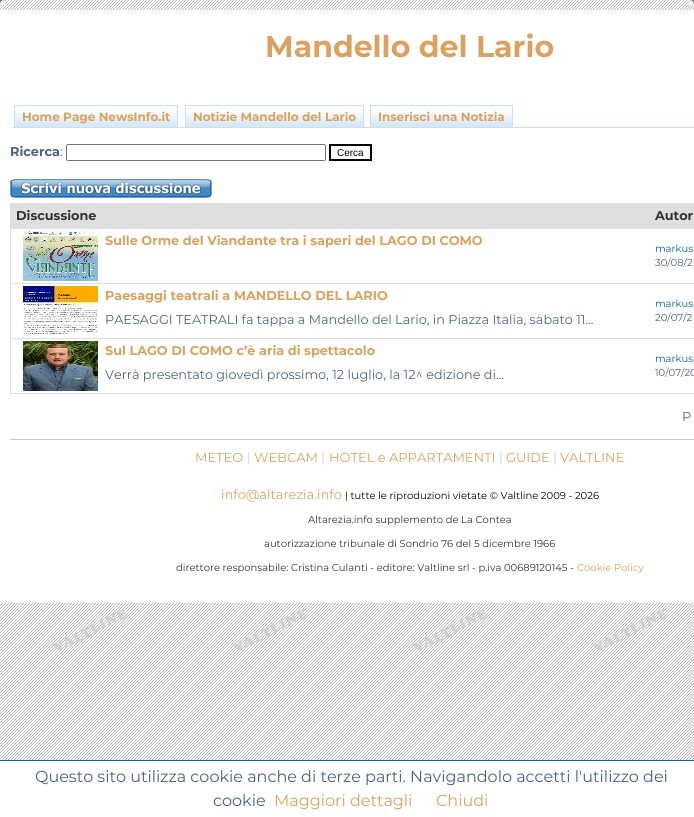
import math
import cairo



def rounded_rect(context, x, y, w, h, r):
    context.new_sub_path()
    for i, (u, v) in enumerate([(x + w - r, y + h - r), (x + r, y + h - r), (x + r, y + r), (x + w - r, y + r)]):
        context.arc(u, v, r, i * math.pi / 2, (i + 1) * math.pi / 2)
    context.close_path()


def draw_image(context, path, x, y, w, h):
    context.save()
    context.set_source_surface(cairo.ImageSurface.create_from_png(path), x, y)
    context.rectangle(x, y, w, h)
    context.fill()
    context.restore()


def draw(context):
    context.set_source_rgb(1, 1, 1)
    context.paint()
    draw_image(context, "images/1.png", 0, 0, 694, 760)
    context.set_source_rgb(1, 1, 1)
    context.rectangle(0, 10, 694, 593)
    context.fill()
    draw_image(context, "images/2.png", 0, 0, 5, 5)
    draw_image(context, "images/3.png", 689, 0, 5, 5)
    draw_image(context, "images/4.png", 15, 112, 162, 15)
    context.set_source_rgb(197 / 255, 223 / 255, 252 / 255)
    context.rectangle(12, 127, 682, 1)
    context.fill()
    context.rectangle(14.5, 105.5, 163, 22)
    context.set_line_width(1)
    context.stroke()
    draw_image(context, "images/5.png", 186, 112, 177, 15)
    context.rectangle(185.5, 105.5, 178, 22)
    context.stroke()
    draw_image(context, "images/6.png", 371, 112, 141, 15)
    context.rectangle(370.5, 105.5, 142, 22)
    context.stroke()
    rounded_rect(context, 66.5, 144.5, 259, 16, 1.5)
    context.set_source_rgb(118 / 255, 118 / 255, 118 / 255)
    context.stroke()
    context.rectangle(330, 145, 41, 15)
    context.set_source_rgb(0, 0, 0)
    context.set_line_width(2)
    context.stroke()
    draw_image(context, "images/7.png", 10, 179, 202, 19)
    context.set_source_rgb(223 / 255, 223 / 255, 223 / 255)
    context.rectangle(10, 203, 684, 191)
    context.fill()
    context.set_source_rgb(1, 1, 1)
    context.rectangle(11, 229, 683, 54)
    context.fill()
    draw_image(context, "images/8.png", 23, 231, 75, 50)
    context.rectangle(11, 284, 683, 54)
    context.fill()
    draw_image(context, "images/9.png", 23, 286, 75, 48)
    context.rectangle(11, 339, 683, 54)
    context.fill()
    draw_image(context, "images/10.png", 23, 341, 75, 50)
    context.set_source_rgb(204 / 255, 204 / 255, 204 / 255)
    context.rectangle(10, 439, 684, 1)
    context.fill()
    context.set_source_rgb(0, 106 / 255, 184 / 255)
    context.rectangle(0, 760, 694, 1)
    context.fill()
    context.select_font_face("Montserrat", cairo.FontSlant.NORMAL, cairo.FontWeight.BOLD)
    context.set_font_size(30)
    context.set_source_rgb(221 / 255, 161 / 255, 94 / 255)
    context.move_to(265, 57)
    context.show_text("Mandello del Lario")
    context.set_font_size(12)
    context.move_to(22, 121)
    context.show_text("Home Page NewsInfo.it")
    context.move_to(193, 121)
    context.show_text("Notizie Mandello del Lario")
    context.move_to(378, 121)
    context.show_text("Inserisci una Notizia")
    context.set_font_size(12.8)
    context.set_source_rgb(77 / 255, 97 / 255, 133 / 255)
    context.move_to(10, 156)
    context.show_text("Ricerca")
    context.select_font_face("Montserrat")
    context.move_to(60, 156)
    context.show_text(":")
    context.select_font_face("Liberation Sans")
    context.set_font_size(10)
    context.set_source_rgb(0, 0, 0)
    context.move_to(337, 156)
    context.show_text("Cerca")
    context.select_font_face("Montserrat", cairo.FontSlant.NORMAL, cairo.FontWeight.BOLD)
    context.set_font_size(12.8)
    context.set_source_rgb(51 / 255, 51 / 255, 51 / 255)
    context.move_to(16, 220)
    context.show_text("Discussione")
    context.move_to(655, 220)
    context.show_text("Autor")
    context.set_source_rgb(221 / 255, 161 / 255, 94 / 255)
    context.move_to(105, 245)
    context.show_text("Sulle Orme del Viandante tra i saperi del LAGO DI COMO")
    context.select_font_face("Montserrat")
    context.set_font_size(10)
    context.set_source_rgb(0, 95 / 255, 169 / 255)
    context.move_to(655, 252)
    context.show_text("markus")
    context.set_source_rgb(77 / 255, 97 / 255, 133 / 255)
    context.move_to(655, 266)
    context.show_text("30/08/2")
    context.select_font_face("Montserrat", cairo.FontSlant.NORMAL, cairo.FontWeight.BOLD)
    context.set_font_size(12.8)
    context.set_source_rgb(221 / 255, 161 / 255, 94 / 255)
    context.move_to(105, 300)
    context.show_text("Paesaggi teatrali a MANDELLO DEL LARIO")
    context.select_font_face("Montserrat")
    context.set_source_rgb(77 / 255, 97 / 255, 133 / 255)
    context.move_to(105, 324)
    context.show_text("PAESAGGI TEATRALI fa tappa a Mandello del Lario, in Piazza Italia, sabato 11...")
    context.set_font_size(10)
    context.set_source_rgb(0, 95 / 255, 169 / 255)
    context.move_to(655, 307)
    context.show_text("markus")
    context.set_source_rgb(77 / 255, 97 / 255, 133 / 255)
    context.move_to(655, 321)
    context.show_text("20/07/2")
    context.select_font_face("Montserrat", cairo.FontSlant.NORMAL, cairo.FontWeight.BOLD)
    context.set_font_size(12.8)
    context.set_source_rgb(221 / 255, 161 / 255, 94 / 255)
    context.move_to(105, 355)
    context.show_text("Sul LAGO DI COMO c’è aria di spettacolo")
    context.select_font_face("Montserrat")
    context.set_source_rgb(77 / 255, 97 / 255, 133 / 255)
    context.move_to(105, 379)
    context.show_text("Verrà presentato giovedì prossimo, 12 luglio, la 12^ edizione di...")
    context.set_font_size(10)
    context.set_source_rgb(0, 95 / 255, 169 / 255)
    context.move_to(655, 362)
    context.show_text("markus")
    context.set_source_rgb(77 / 255, 97 / 255, 133 / 255)
    context.move_to(655, 376)
    context.show_text("10/07/20")
    context.set_font_size(12.8)
    context.move_to(682, 421)
    context.show_text("P")
    context.set_font_size(13)
    context.set_source_rgb(221 / 255, 161 / 255, 94 / 255)
    context.move_to(195, 462)
    context.show_text("METEO")
    context.set_source_rgb(204 / 255, 204 / 255, 204 / 255)
    context.move_to(247, 462)
    context.show_text("|")
    context.set_source_rgb(221 / 255, 161 / 255, 94 / 255)
    context.move_to(254, 462)
    context.show_text("WEBCAM")
    context.set_source_rgb(204 / 255, 204 / 255, 204 / 255)
    context.move_to(321, 462)
    context.show_text("|")
    context.set_source_rgb(221 / 255, 161 / 255, 94 / 255)
    context.move_to(329, 462)
    context.show_text("HOTEL e APPARTAMENTI")
    context.set_source_rgb(204 / 255, 204 / 255, 204 / 255)
    context.move_to(499, 462)
    context.show_text("|")
    context.set_source_rgb(221 / 255, 161 / 255, 94 / 255)
    context.move_to(506, 462)
    context.show_text("GUIDE")
    context.set_source_rgb(204 / 255, 204 / 255, 204 / 255)
    context.move_to(553, 462)
    context.show_text("|")
    context.set_source_rgb(221 / 255, 161 / 255, 94 / 255)
    context.move_to(560, 462)
    context.show_text("VALTLINE")
    context.move_to(221, 499)
    context.show_text("info@altarezia.info")
    context.set_font_size(10)
    context.set_source_rgb(0, 0, 0)
    context.move_to(345, 499)
    context.show_text("| tutte le riproduzioni vietate © Valtline 2009 - 2026")
    context.set_source_rgb(51 / 255, 51 / 255, 51 / 255)
    context.move_to(308, 523)
    context.show_text("Altarezia.info supplemento de La Contea")
    context.move_to(264, 547)
    context.show_text("autorizzazione tribunale di Sondrio 76 del 5 dicembre 1966")
    context.move_to(176, 571)
    context.show_text("direttore responsabile: Cristina Culanti - editore: Valtline srl - p.iva 00689120145 -")
    context.set_source_rgb(221 / 255, 161 / 255, 94 / 255)
    context.move_to(577, 571)
    context.show_text("Cookie Policy")
    context.set_font_size(16)
    context.set_source_rgb(77 / 255, 97 / 255, 133 / 255)
    context.move_to(35, 782)
    context.show_text("Questo sito utilizza cookie anche di terze parti. Navigandolo accetti l'utilizzo dei")
    context.move_to(213, 806)
    context.show_text("cookie")
    context.set_source_rgb(221 / 255, 161 / 255, 94 / 255)
    context.move_to(274, 806)
    context.show_text("Maggiori dettagli")
    context.move_to(436, 806)
    context.show_text("Chiudi")


surface = cairo.ImageSurface(cairo.Format.RGB24, 694, 817)
context = cairo.Context(surface)
options = cairo.FontOptions()
options.set_hint_metrics(cairo.HintMetrics.OFF)
options.set_hint_style(cairo.HintStyle.NONE)
context.set_font_options(options)
context.set_miter_limit(4)
draw(context)
surface.write_to_png("out.png")
